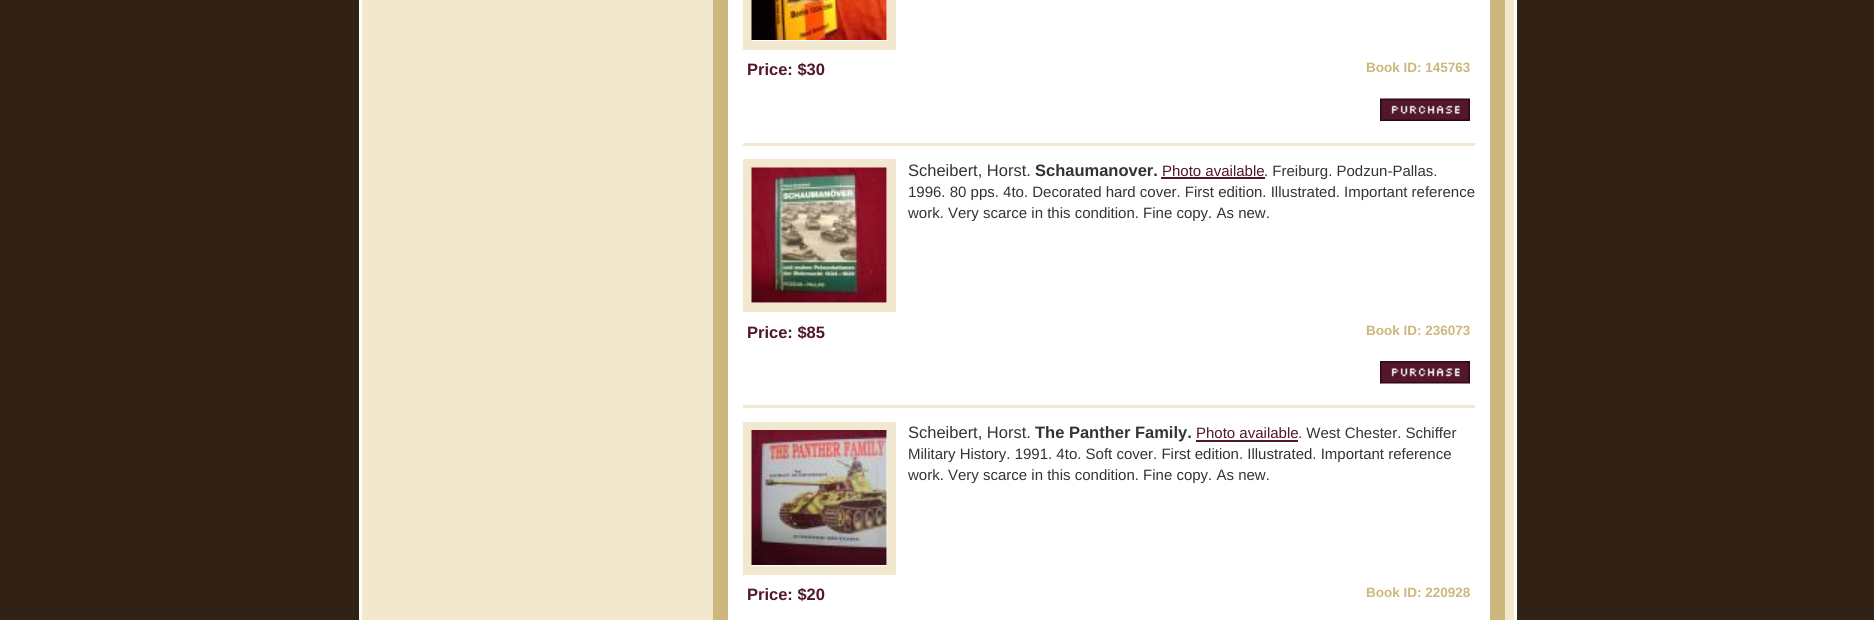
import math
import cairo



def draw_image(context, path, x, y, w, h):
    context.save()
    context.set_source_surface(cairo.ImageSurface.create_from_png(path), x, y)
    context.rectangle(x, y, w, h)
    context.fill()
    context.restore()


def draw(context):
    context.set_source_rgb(49 / 255, 34 / 255, 21 / 255)
    context.paint()
    context.set_source_rgb(241 / 255, 232 / 255, 205 / 255)
    context.rectangle(360.5, -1.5, 1155, 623)
    context.fill_preserve()
    context.set_source_rgb(1, 1, 1)
    context.set_line_width(3)
    context.stroke()
    context.set_source_rgb(205 / 255, 183 / 255, 125 / 255)
    context.rectangle(713, 0, 15, 620)
    context.fill()
    context.set_source_rgb(1, 1, 1)
    context.rectangle(728, 0, 762, 620)
    context.fill()
    context.rectangle(747.5, -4.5, 144, 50)
    context.set_source_rgb(242 / 255, 231 / 255, 207 / 255)
    context.set_line_width(9)
    context.stroke()
    draw_image(context, "images/1.png", 751, 0, 136, 40)
    draw_image(context, "images/2.png", 1380, 98, 90, 23)
    context.rectangle(743, 143, 732, 3)
    context.fill()
    context.rectangle(747.5, 163.5, 144, 144)
    context.stroke()
    draw_image(context, "images/3.png", 751, 167, 136, 136)
    context.set_source_rgb(82 / 255, 22 / 255, 45 / 255)
    context.rectangle(1161, 177, 104, 2)
    context.fill()
    draw_image(context, "images/4.png", 1380, 361, 90, 23)
    context.set_source_rgb(242 / 255, 231 / 255, 207 / 255)
    context.rectangle(743, 405, 732, 3)
    context.fill()
    context.rectangle(747.5, 426.5, 144, 144)
    context.stroke()
    draw_image(context, "images/5.png", 751, 430, 136, 135)
    context.set_source_rgb(82 / 255, 22 / 255, 45 / 255)
    context.rectangle(1196, 440, 102, 2)
    context.fill()
    context.set_source_rgb(205 / 255, 183 / 255, 125 / 255)
    context.rectangle(1490, 0, 15, 620)
    context.fill()
    context.select_font_face("Liberation Sans", cairo.FontSlant.NORMAL, cairo.FontWeight.BOLD)
    context.set_font_size(16.5)
    context.set_source_rgb(82 / 255, 22 / 255, 45 / 255)
    context.move_to(747, 75)
    context.show_text("Price: $30")
    context.set_font_size(13.5)
    context.set_source_rgb(205 / 255, 183 / 255, 125 / 255)
    context.move_to(1366, 72)
    context.show_text("Book ID: 145763")
    context.select_font_face("Liberation Sans")
    context.set_font_size(16.5)
    context.set_source_rgb(51 / 255, 51 / 255, 51 / 255)
    context.move_to(908, 176)
    context.show_text("Scheibert, Horst.")
    context.select_font_face("Liberation Sans", cairo.FontSlant.NORMAL, cairo.FontWeight.BOLD)
    context.move_to(1035, 176)
    context.show_text("Schaumanover.")
    context.select_font_face("Liberation Sans")
    context.set_font_size(15)
    context.set_source_rgb(82 / 255, 22 / 255, 45 / 255)
    context.move_to(1162, 176)
    context.show_text("Photo available")
    context.set_source_rgb(51 / 255, 51 / 255, 51 / 255)
    context.move_to(1264, 176)
    context.show_text(". Freiburg. Podzun-Pallas.")
    context.move_to(908, 197)
    context.show_text("1996. 80 pps. 4to. Decorated hard cover. First edition. Illustrated. Important reference")
    context.move_to(908, 218)
    context.show_text("work. Very scarce in this condition. Fine copy. As new.")
    context.select_font_face("Liberation Sans", cairo.FontSlant.NORMAL, cairo.FontWeight.BOLD)
    context.set_font_size(16.5)
    context.set_source_rgb(82 / 255, 22 / 255, 45 / 255)
    context.move_to(747, 338)
    context.show_text("Price: $85")
    context.set_font_size(13.5)
    context.set_source_rgb(205 / 255, 183 / 255, 125 / 255)
    context.move_to(1366, 335)
    context.show_text("Book ID: 236073")
    context.select_font_face("Liberation Sans")
    context.set_font_size(16.5)
    context.set_source_rgb(51 / 255, 51 / 255, 51 / 255)
    context.move_to(908, 438)
    context.show_text("Scheibert, Horst.")
    context.select_font_face("Liberation Sans", cairo.FontSlant.NORMAL, cairo.FontWeight.BOLD)
    context.move_to(1035, 438)
    context.show_text("The Panther Family.")
    context.select_font_face("Liberation Sans")
    context.set_font_size(15)
    context.set_source_rgb(82 / 255, 22 / 255, 45 / 255)
    context.move_to(1196, 438)
    context.show_text("Photo available")
    context.set_source_rgb(51 / 255, 51 / 255, 51 / 255)
    context.move_to(1298, 438)
    context.show_text(". West Chester. Schiffer")
    context.move_to(908, 459)
    context.show_text("Military History. 1991. 4to. Soft cover. First edition. Illustrated. Important reference")
    context.move_to(908, 480)
    context.show_text("work. Very scarce in this condition. Fine copy. As new.")
    context.select_font_face("Liberation Sans", cairo.FontSlant.NORMAL, cairo.FontWeight.BOLD)
    context.set_font_size(16.5)
    context.set_source_rgb(82 / 255, 22 / 255, 45 / 255)
    context.move_to(747, 600)
    context.show_text("Price: $20")
    context.set_font_size(13.5)
    context.set_source_rgb(205 / 255, 183 / 255, 125 / 255)
    context.move_to(1366, 597)
    context.show_text("Book ID: 220928")


surface = cairo.ImageSurface(cairo.Format.RGB24, 1874, 620)
context = cairo.Context(surface)
options = cairo.FontOptions()
options.set_hint_metrics(cairo.HintMetrics.OFF)
options.set_hint_style(cairo.HintStyle.NONE)
context.set_font_options(options)
context.set_miter_limit(4)
draw(context)
surface.write_to_png("out.png")
